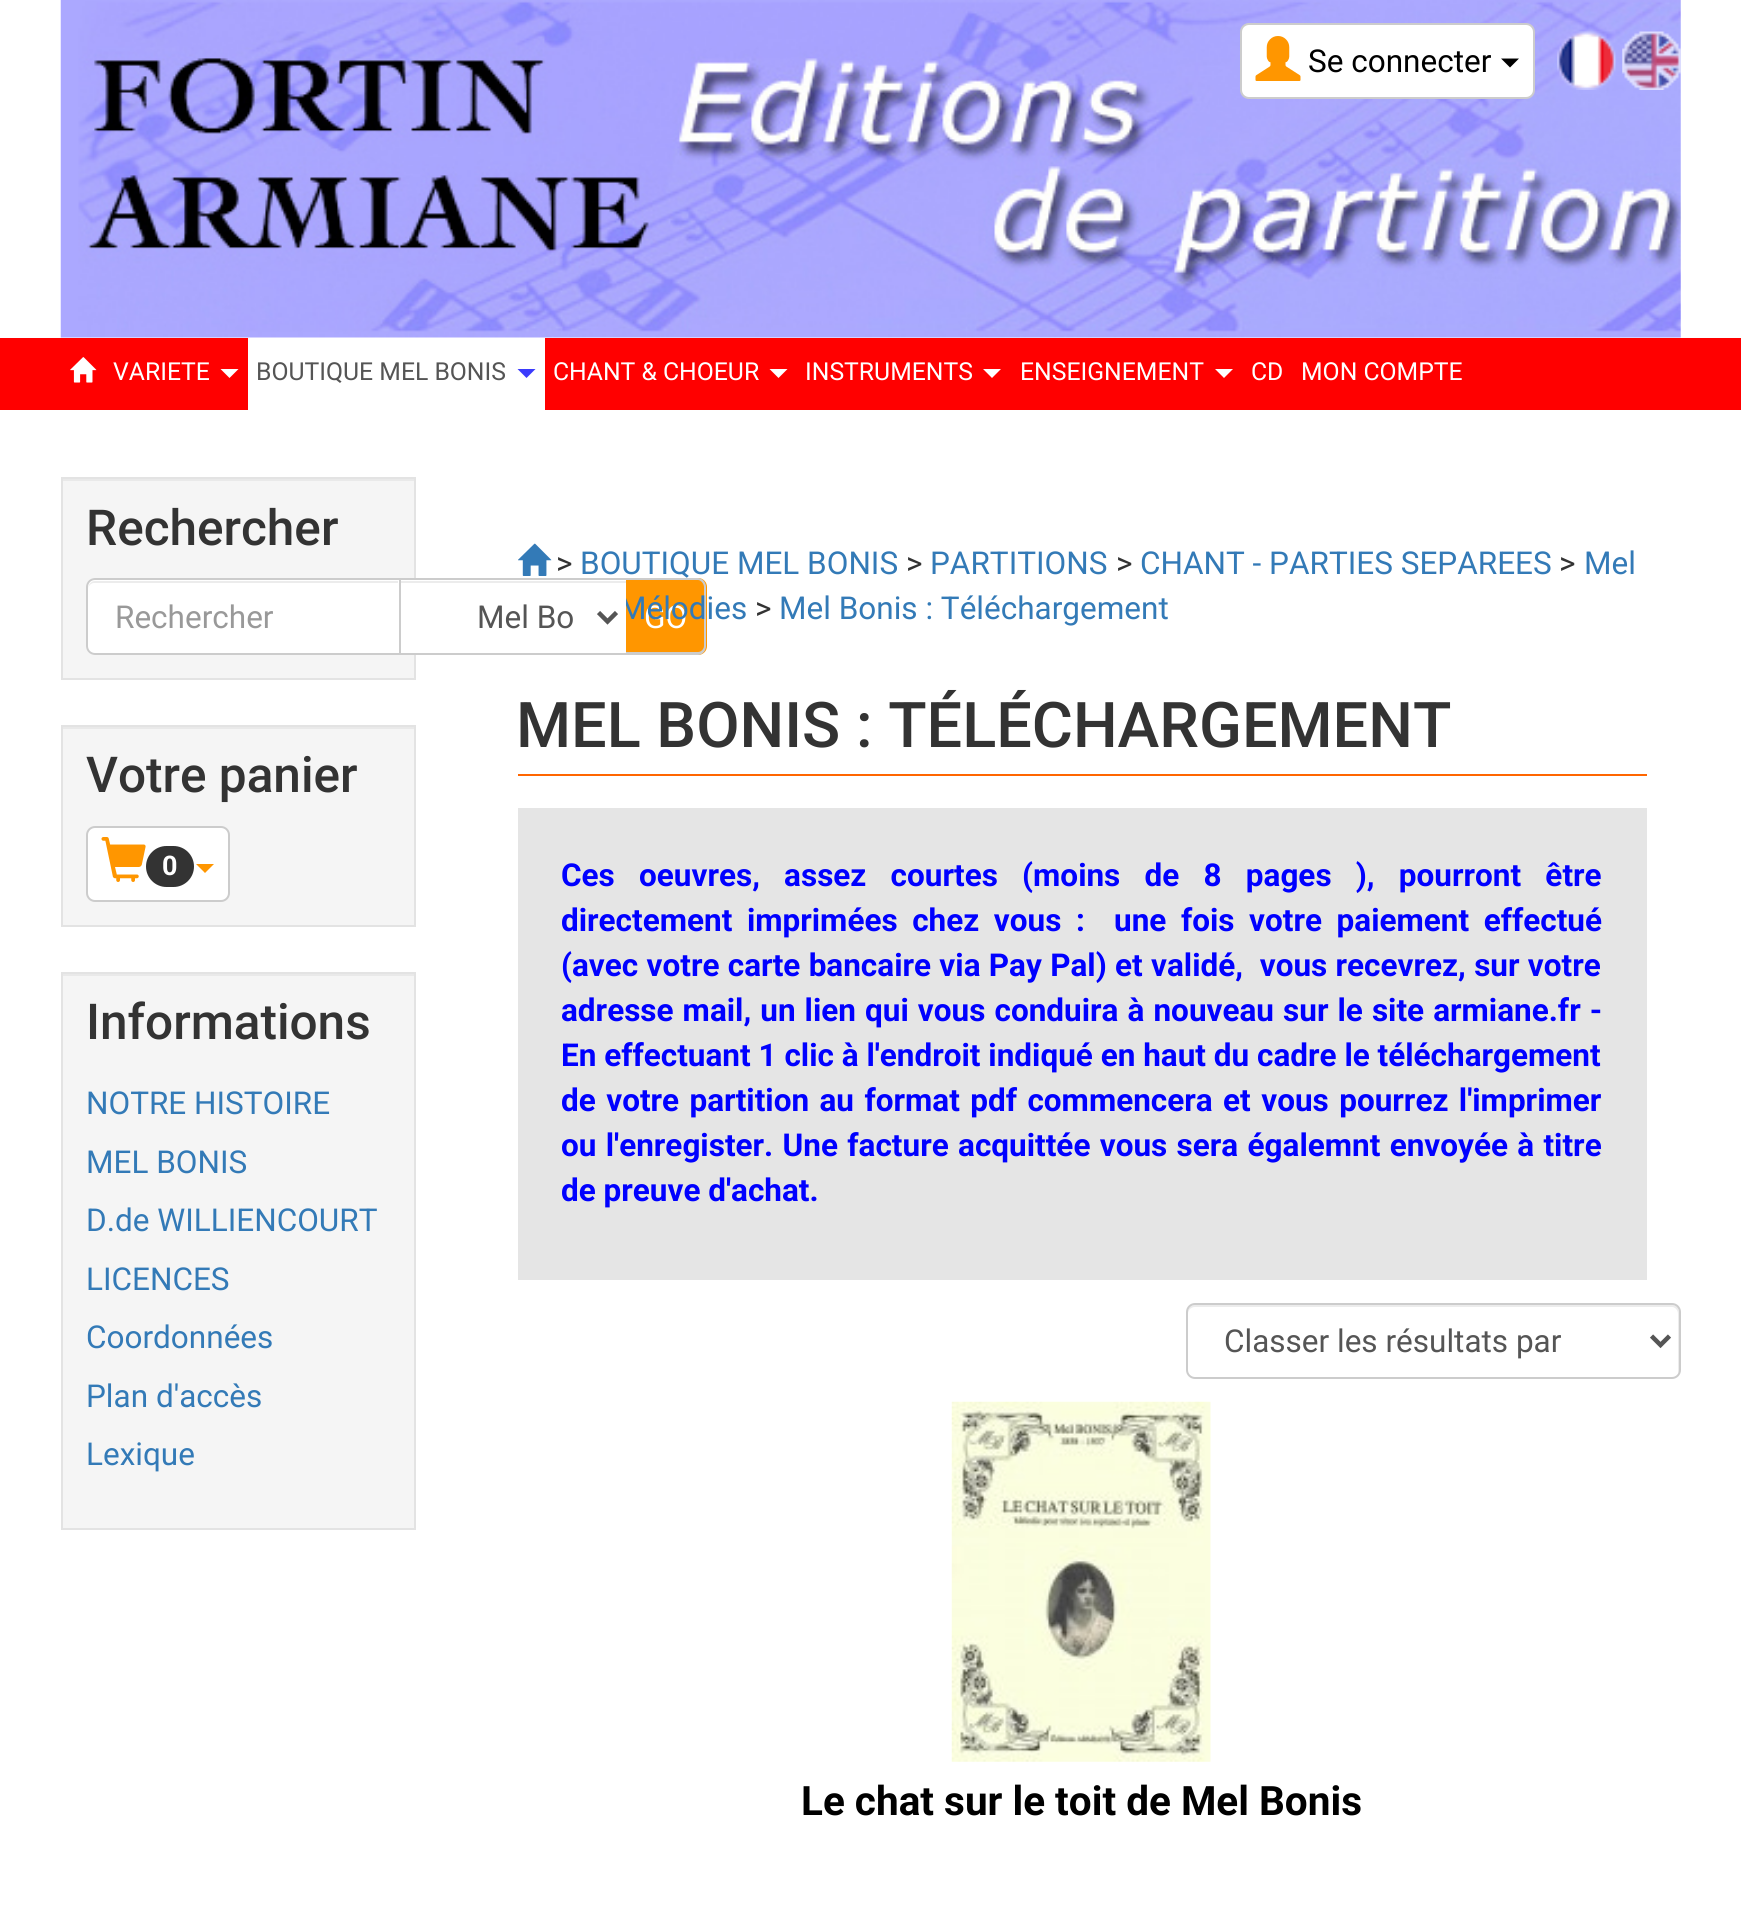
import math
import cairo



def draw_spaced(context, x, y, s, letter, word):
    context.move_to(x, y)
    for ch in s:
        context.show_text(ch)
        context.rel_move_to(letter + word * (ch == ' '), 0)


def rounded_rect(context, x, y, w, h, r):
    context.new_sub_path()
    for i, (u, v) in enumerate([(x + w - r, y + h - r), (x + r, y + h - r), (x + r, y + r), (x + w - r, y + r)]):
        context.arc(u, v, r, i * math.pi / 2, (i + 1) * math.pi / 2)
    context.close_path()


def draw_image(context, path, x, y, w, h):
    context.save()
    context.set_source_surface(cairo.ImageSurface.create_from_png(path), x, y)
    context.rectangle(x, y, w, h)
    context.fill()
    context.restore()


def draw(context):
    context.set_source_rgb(1, 1, 1)
    context.paint()
    draw_image(context, "images/1.png", 60, 0, 1621, 338)
    context.set_source_rgb(1, 1, 1)
    rounded_rect(context, 1241, 24, 293, 74, 8)
    context.fill_preserve()
    context.set_source_rgb(204 / 255, 204 / 255, 204 / 255)
    context.stroke()
    draw_image(context, "images/2.png", 1255, 36, 46, 45)
    context.set_source_rgb(0, 0, 0)
    context.new_path()
    context.move_to(1501, 58.5)
    context.line_to(1519, 58.5)
    context.line_to(1510, 67.5)
    context.close_path()
    context.fill()
    draw_image(context, "images/3.png", 1557, 31, 59, 59)
    draw_image(context, "images/4.png", 1622, 31, 59, 59)
    context.set_source_rgb(1, 0, 0)
    context.rectangle(0, 338, 1741, 72)
    context.fill()
    draw_image(context, "images/5.png", 70, 357, 27, 26)
    context.set_source_rgb(1, 1, 1)
    context.new_path()
    context.move_to(220.5, 369)
    context.line_to(238.5, 369)
    context.line_to(229.5, 378)
    context.close_path()
    context.fill()
    context.rectangle(248, 338, 297, 72)
    context.fill()
    context.set_source_rgb(59 / 255, 59 / 255, 252 / 255)
    context.new_path()
    context.move_to(517.5, 369)
    context.line_to(535.5, 369)
    context.line_to(526.5, 378)
    context.close_path()
    context.fill()
    context.set_source_rgb(1, 1, 1)
    context.new_path()
    context.move_to(769.5, 369)
    context.line_to(787.5, 369)
    context.line_to(778.5, 378)
    context.close_path()
    context.fill()
    context.new_path()
    context.move_to(983, 369)
    context.line_to(1001, 369)
    context.line_to(992, 378)
    context.close_path()
    context.fill()
    context.new_path()
    context.move_to(1215, 369)
    context.line_to(1233, 369)
    context.line_to(1224, 378)
    context.close_path()
    context.fill()
    context.set_source_rgb(245 / 255, 245 / 255, 245 / 255)
    context.rectangle(63, 481, 351, 197)
    context.fill()
    context.set_source_rgb(233 / 255, 233 / 255, 233 / 255)
    context.rectangle(63, 479, 351, 2)
    context.fill()
    context.rectangle(62, 478, 353, 201)
    context.set_source_rgb(227 / 255, 227 / 255, 227 / 255)
    context.stroke()
    context.set_source_rgb(1, 1, 1)
    context.new_path()
    context.move_to(95, 578)
    context.line_to(401, 578)
    context.line_to(401, 655)
    context.line_to(95, 655)
    context.curve_to(90, 655, 86, 651, 86, 646)
    context.line_to(86, 587)
    context.curve_to(86, 582, 90, 578, 95, 578)
    context.close_path()
    context.fill()
    context.set_source_rgb(236 / 255, 236 / 255, 236 / 255)
    context.new_path()
    context.move_to(94, 583)
    context.line_to(398, 583)
    context.line_to(398, 581)
    context.line_to(95, 581)
    context.curve_to(90, 581, 88, 586, 88, 590)
    context.curve_to(88, 586, 91, 583, 94, 583)
    context.close_path()
    context.fill()
    context.new_path()
    context.move_to(95, 579)
    context.line_to(400, 579)
    context.line_to(400, 654)
    context.line_to(95, 654)
    context.curve_to(90.5, 654, 87, 650.5, 87, 646)
    context.line_to(87, 587)
    context.curve_to(87, 582.5, 90.5, 579, 95, 579)
    context.close_path()
    context.set_source_rgb(204 / 255, 204 / 255, 204 / 255)
    context.stroke()
    context.rectangle(401, 578, 225, 2)
    context.fill()
    context.rectangle(401, 653, 225, 2)
    context.fill()
    context.set_source_rgb(1, 150 / 255, 0)
    context.new_path()
    context.move_to(626, 578)
    context.line_to(698, 578)
    context.curve_to(703, 578, 707, 582, 707, 587)
    context.line_to(707, 646)
    context.curve_to(707, 651, 703, 655, 698, 655)
    context.line_to(626, 655)
    context.close_path()
    context.fill()
    context.set_source_rgb(204 / 255, 204 / 255, 204 / 255)
    context.set_fill_rule(cairo.FillRule.EVEN_ODD)
    context.new_path()
    context.move_to(626, 578)
    context.line_to(698, 578)
    context.curve_to(702, 578, 706, 582, 706, 587)
    context.line_to(706, 646)
    context.curve_to(706, 651, 702, 655, 698, 655)
    context.line_to(626, 655)
    context.close_path()
    context.move_to(626, 580)
    context.line_to(698, 580)
    context.curve_to(701, 580, 704, 584, 704, 587)
    context.line_to(704, 646)
    context.curve_to(704, 649, 701, 652, 698, 652)
    context.line_to(626, 652)
    context.close_path()
    context.fill()
    context.set_source_rgb(245 / 255, 245 / 255, 245 / 255)
    context.rectangle(63, 729, 351, 196)
    context.fill()
    context.set_source_rgb(233 / 255, 233 / 255, 233 / 255)
    context.rectangle(63, 727, 351, 2)
    context.fill()
    context.rectangle(62, 726, 353, 200)
    context.set_source_rgb(227 / 255, 227 / 255, 227 / 255)
    context.stroke()
    context.set_source_rgb(1, 1, 1)
    rounded_rect(context, 87, 827, 142, 74, 8)
    context.fill_preserve()
    context.set_source_rgb(204 / 255, 204 / 255, 204 / 255)
    context.stroke()
    draw_image(context, "images/6.png", 101, 837, 45, 45)
    context.set_source_rgb(51 / 255, 51 / 255, 51 / 255)
    rounded_rect(context, 146, 846, 48, 41, 20.5)
    context.fill()
    context.set_source_rgb(1, 150 / 255, 0)
    context.set_fill_rule(cairo.FillRule.WINDING)
    context.new_path()
    context.move_to(196, 864)
    context.line_to(214, 864)
    context.line_to(205, 873)
    context.close_path()
    context.fill()
    context.set_source_rgb(245 / 255, 245 / 255, 245 / 255)
    context.rectangle(63, 976, 351, 552)
    context.fill()
    context.set_source_rgb(233 / 255, 233 / 255, 233 / 255)
    context.rectangle(63, 974, 351, 2)
    context.fill()
    context.rectangle(62, 973, 353, 556)
    context.set_source_rgb(227 / 255, 227 / 255, 227 / 255)
    context.stroke()
    draw_image(context, "images/7.png", 518, 543, 34, 33)
    context.set_source_rgb(1, 102 / 255, 0)
    context.rectangle(518, 774, 1129, 2)
    context.fill()
    context.set_source_rgb(229 / 255, 229 / 255, 229 / 255)
    context.rectangle(518, 808, 1129, 472)
    context.fill()
    context.set_source_rgb(236 / 255, 236 / 255, 236 / 255)
    context.new_path()
    context.move_to(1195, 1307)
    context.line_to(1672, 1307)
    context.curve_to(1675, 1307, 1678, 1310, 1678, 1314)
    context.line_to(1678, 1374)
    context.curve_to(1679, 1373, 1679, 1371, 1679, 1370)
    context.line_to(1679, 1312)
    context.curve_to(1679, 1308, 1676, 1305, 1672, 1305)
    context.line_to(1195, 1305)
    context.curve_to(1191, 1305, 1188, 1308, 1188, 1312)
    context.line_to(1188, 1314)
    context.curve_to(1188, 1310, 1191, 1307, 1195, 1307)
    context.close_path()
    context.fill()
    rounded_rect(context, 1187, 1304, 493, 74, 8)
    context.set_source_rgb(204 / 255, 204 / 255, 204 / 255)
    context.stroke()
    context.new_path()
    context.move_to(1651.5, 1336)
    context.line_to(1660.5, 1345)
    context.line_to(1669.5, 1336)
    context.set_source_rgb(85 / 255, 85 / 255, 85 / 255)
    context.set_line_width(4.5)
    context.stroke()
    draw_image(context, "images/8.png", 951, 1401, 260, 361)
    context.select_font_face("Roboto")
    context.set_font_size(31.5)
    context.set_source_rgb(0, 0, 0)
    context.move_to(1308, 72)
    context.show_text("Se connecter")
    context.set_font_size(24.75)
    context.set_source_rgb(1, 1, 1)
    context.move_to(113, 380)
    context.show_text("VARIETE")
    context.set_source_rgb(85 / 255, 85 / 255, 85 / 255)
    context.move_to(256, 380)
    context.show_text("BOUTIQUE MEL BONIS")
    context.set_source_rgb(1, 1, 1)
    context.move_to(553, 380)
    context.show_text("CHANT & CHOEUR")
    context.move_to(805, 380)
    context.show_text("INSTRUMENTS")
    context.move_to(1020, 380)
    context.show_text("ENSEIGNEMENT")
    context.move_to(1251, 380)
    context.show_text("CD")
    context.move_to(1301, 380)
    context.show_text("MON COMPTE")
    context.select_font_face("Roboto Medium")
    context.set_font_size(49.5)
    context.set_source_rgb(51 / 255, 51 / 255, 51 / 255)
    context.move_to(86, 545)
    context.show_text("Rechercher")
    context.select_font_face("Roboto")
    context.set_font_size(31.5)
    context.set_source_rgb(153 / 255, 153 / 255, 153 / 255)
    context.move_to(115, 628)
    context.show_text("Rechercher")
    context.set_source_rgb(1, 1, 1)
    context.move_to(644, 628)
    context.show_text("GO")
    context.select_font_face("Roboto Medium")
    context.set_font_size(49.5)
    context.set_source_rgb(51 / 255, 51 / 255, 51 / 255)
    context.move_to(86, 792)
    context.show_text("Votre panier")
    context.select_font_face("Roboto", cairo.FontSlant.NORMAL, cairo.FontWeight.BOLD)
    context.set_font_size(27)
    context.set_source_rgb(1, 1, 1)
    context.move_to(162, 875)
    context.show_text("0")
    context.select_font_face("Roboto Medium")
    context.set_font_size(49.5)
    context.set_source_rgb(51 / 255, 51 / 255, 51 / 255)
    context.move_to(86, 1039)
    context.show_text("Informations")
    context.select_font_face("Roboto")
    context.set_font_size(31.5)
    context.set_source_rgb(51 / 255, 122 / 255, 183 / 255)
    context.move_to(86, 1114)
    context.show_text("NOTRE HISTOIRE")
    context.move_to(86, 1173)
    context.show_text("MEL BONIS")
    context.move_to(86, 1231)
    context.show_text("D.de WILLIENCOURT")
    context.move_to(86, 1290)
    context.show_text("LICENCES")
    context.move_to(86, 1348)
    context.show_text("Coordonnées")
    context.move_to(86, 1407)
    context.show_text("Plan d'accès")
    context.move_to(86, 1465)
    context.show_text("Lexique")
    context.set_source_rgb(51 / 255, 51 / 255, 51 / 255)
    context.move_to(556, 574)
    context.show_text(">")
    context.set_source_rgb(51 / 255, 122 / 255, 183 / 255)
    context.move_to(580, 574)
    context.show_text("BOUTIQUE MEL BONIS")
    context.set_source_rgb(51 / 255, 51 / 255, 51 / 255)
    context.move_to(906, 574)
    context.show_text(">")
    context.set_source_rgb(51 / 255, 122 / 255, 183 / 255)
    context.move_to(930, 574)
    context.show_text("PARTITIONS")
    context.set_source_rgb(51 / 255, 51 / 255, 51 / 255)
    context.move_to(1116, 574)
    context.show_text(">")
    context.set_source_rgb(51 / 255, 122 / 255, 183 / 255)
    context.move_to(1140, 574)
    context.show_text("CHANT - PARTIES SEPAREES")
    context.set_source_rgb(51 / 255, 51 / 255, 51 / 255)
    context.move_to(1559, 574)
    context.show_text(">")
    context.set_source_rgb(51 / 255, 122 / 255, 183 / 255)
    context.move_to(1584, 574)
    context.show_text("Mel")
    context.move_to(619, 619)
    context.show_text("Mélodies")
    context.set_source_rgb(1, 1, 1)
    context.rectangle(401, 580, 225, 73)
    context.fill()
    context.set_source_rgb(85 / 255, 85 / 255, 85 / 255)
    context.move_to(477, 628)
    context.show_text("Mel Bo")
    context.new_path()
    context.move_to(598.5, 612.5)
    context.line_to(607.5, 621.5)
    context.line_to(616.5, 612.5)
    context.stroke()
    context.set_source_rgb(236 / 255, 236 / 255, 236 / 255)
    context.rectangle(401, 581, 225, 2)
    context.fill()
    context.set_source_rgb(51 / 255, 51 / 255, 51 / 255)
    context.move_to(755, 619)
    context.show_text(">")
    context.set_source_rgb(51 / 255, 122 / 255, 183 / 255)
    context.move_to(779, 619)
    context.show_text("Mel Bonis : Téléchargement")
    context.select_font_face("Roboto Medium")
    context.set_font_size(63)
    context.set_source_rgb(51 / 255, 51 / 255, 51 / 255)
    context.move_to(516, 747)
    context.show_text("MEL BONIS : TÉLÉCHARGEMENT")
    context.select_font_face("Roboto", cairo.FontSlant.NORMAL, cairo.FontWeight.BOLD)
    context.set_font_size(31.5)
    context.set_source_rgb(0, 0, 1)
    draw_spaced(context, 561, 886, "Ces oeuvres, assez courtes (moins de 8 pages ), pourront être", 0, 16.4)
    draw_spaced(context, 561, 931, "directement imprimées chez vous :  une fois votre paiement effectué", 0, 6.75)
    draw_spaced(context, 561, 976, "(avec votre carte bancaire via Pay Pal) et validé,  vous recevrez, sur votre", 0, 0.5)
    draw_spaced(context, 561, 1021, "adresse mail, un lien qui vous conduira à nouveau sur le site armiane.fr -", 0, 1.25)
    context.move_to(561, 1066)
    context.show_text("En effectuant 1 clic à l'endroit indiqué en haut du cadre le téléchargement")
    draw_spaced(context, 561, 1111, "de votre partition au format pdf commencera et vous pourrez l'imprimer", 0, 2.6)
    draw_spaced(context, 561, 1156, "ou l'enregister. Une facture acquittée vous sera égalemnt envoyée à titre", 0, 1.5)
    context.move_to(561, 1201)
    context.show_text("de preuve d'achat.")
    context.select_font_face("Roboto")
    context.set_source_rgb(85 / 255, 85 / 255, 85 / 255)
    context.move_to(1224, 1352)
    context.show_text("Classer les résultats par")
    context.select_font_face("Roboto", cairo.FontSlant.NORMAL, cairo.FontWeight.BOLD)
    context.set_font_size(40.5)
    context.set_source_rgb(0, 0, 0)
    context.move_to(801, 1815)
    context.show_text("Le chat sur le toit de Mel Bonis")


surface = cairo.ImageSurface(cairo.Format.RGB24, 1741, 1905)
context = cairo.Context(surface)
options = cairo.FontOptions()
options.set_hint_metrics(cairo.HintMetrics.OFF)
options.set_hint_style(cairo.HintStyle.NONE)
context.set_font_options(options)
context.set_miter_limit(4)
draw(context)
surface.write_to_png("out.png")
